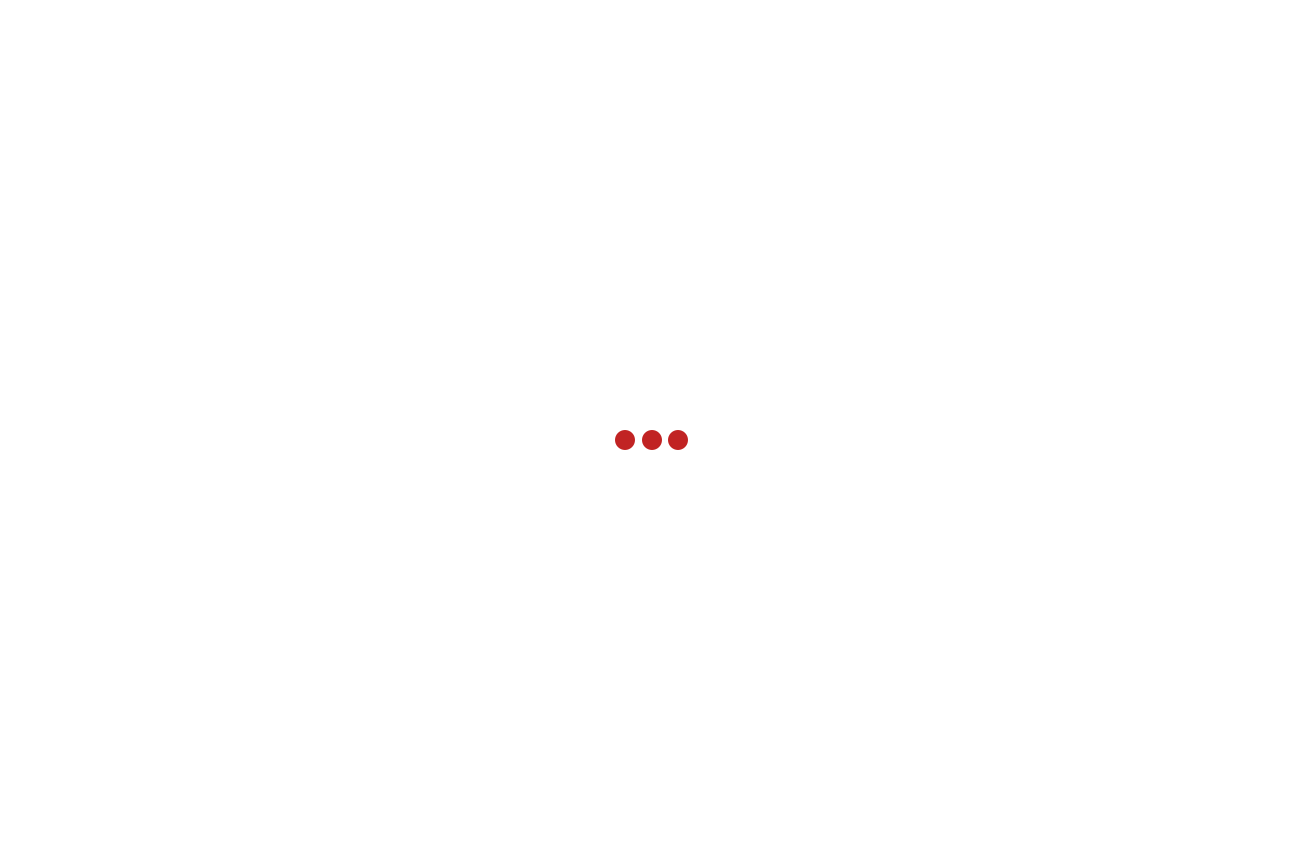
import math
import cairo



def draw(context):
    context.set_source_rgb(1, 1, 1)
    context.paint()
    context.set_source_rgb(193 / 255, 35 / 255, 35 / 255)
    context.arc(625, 440, 10, 0, 2 * math.pi)
    context.fill()
    context.arc(652, 440, 10, 0, 2 * math.pi)
    context.fill()
    context.arc(678, 440, 10, 0, 2 * math.pi)
    context.fill()


surface = cairo.ImageSurface(cairo.Format.RGB24, 1303, 863)
context = cairo.Context(surface)
options = cairo.FontOptions()
options.set_hint_metrics(cairo.HintMetrics.OFF)
options.set_hint_style(cairo.HintStyle.NONE)
context.set_font_options(options)
context.set_miter_limit(4)
draw(context)
surface.write_to_png("out.png")
